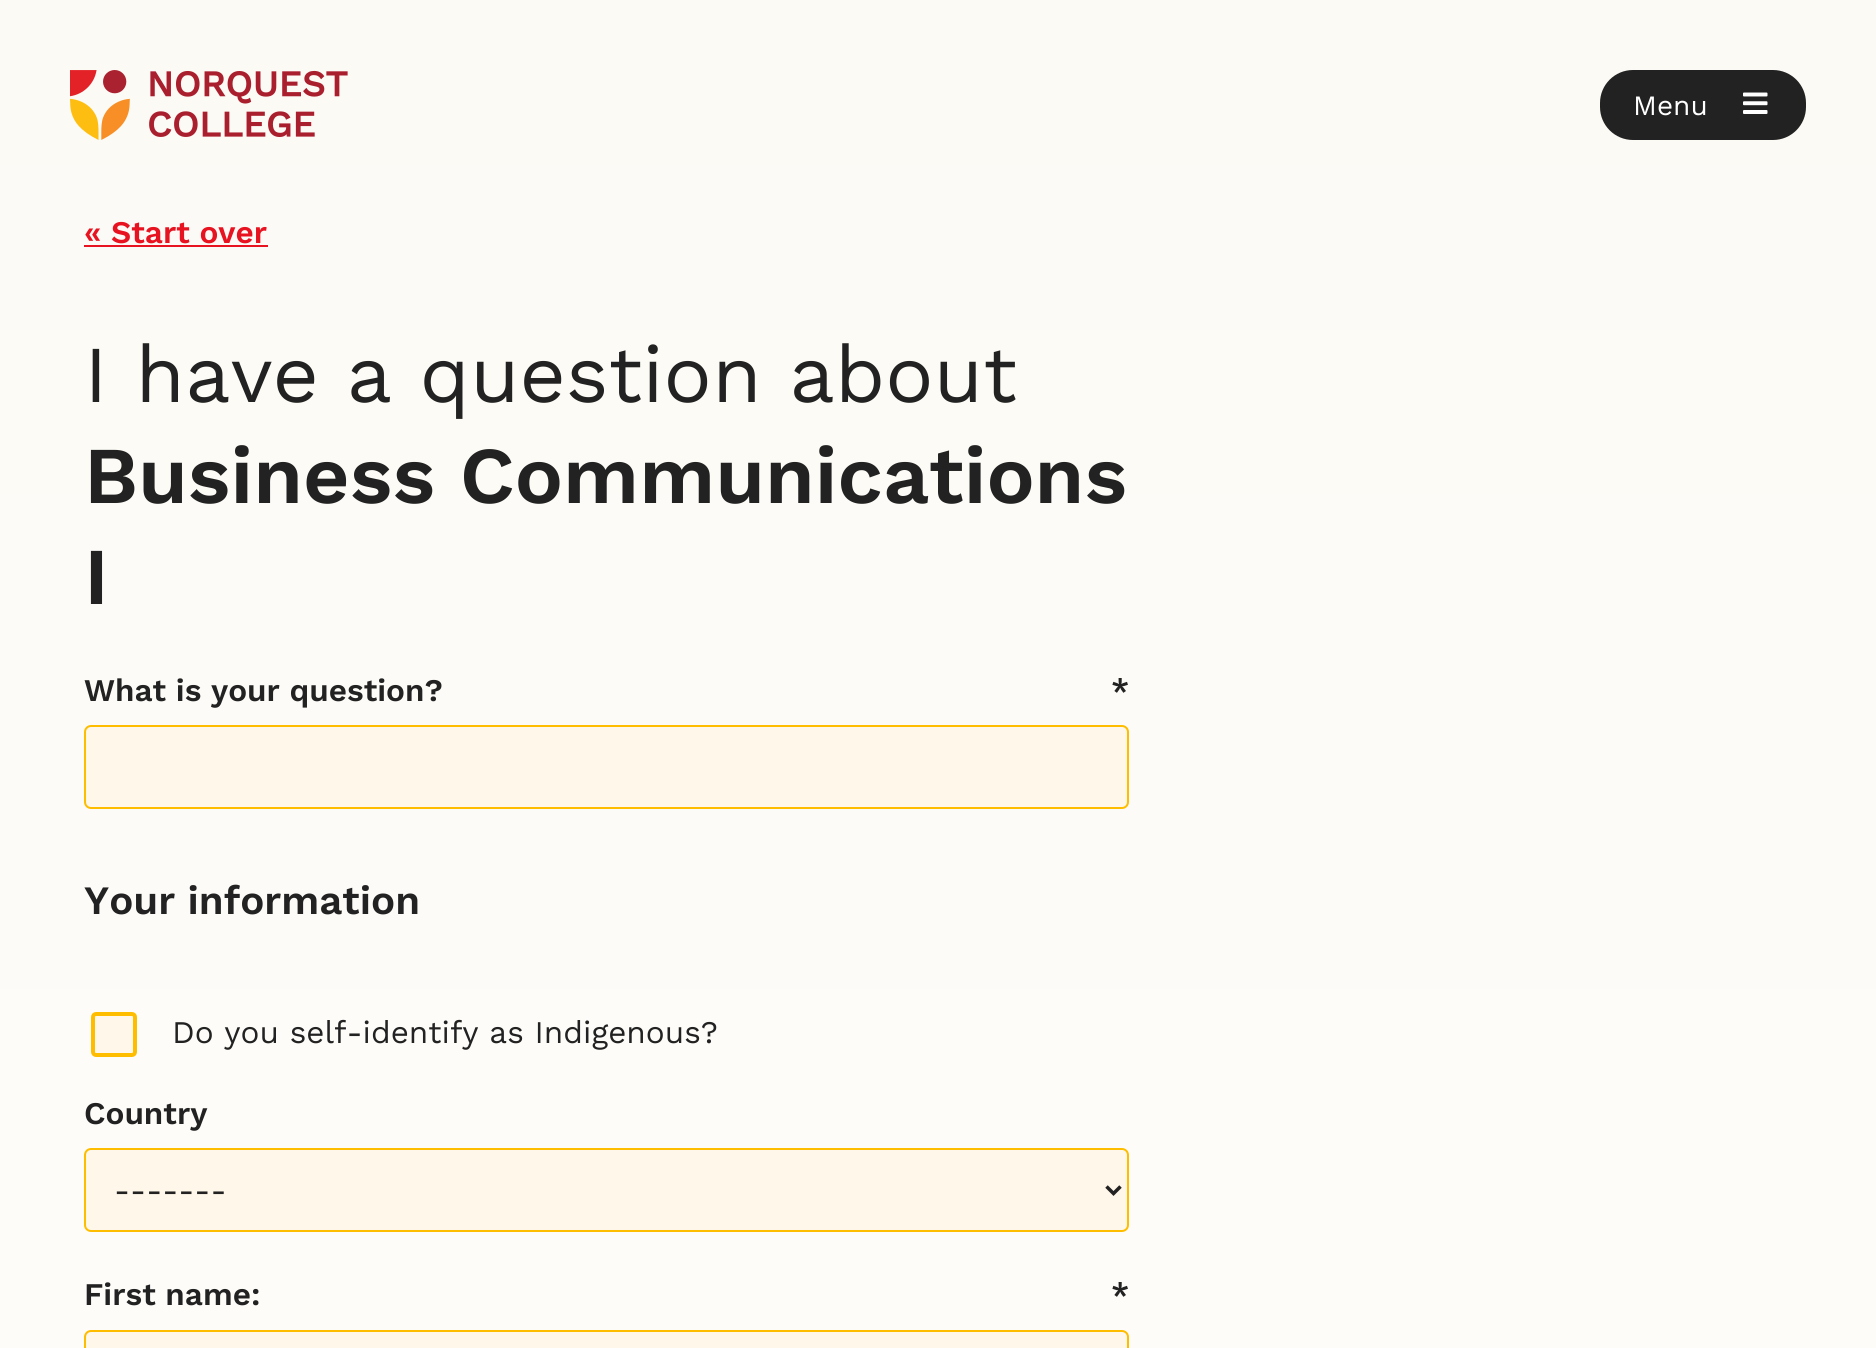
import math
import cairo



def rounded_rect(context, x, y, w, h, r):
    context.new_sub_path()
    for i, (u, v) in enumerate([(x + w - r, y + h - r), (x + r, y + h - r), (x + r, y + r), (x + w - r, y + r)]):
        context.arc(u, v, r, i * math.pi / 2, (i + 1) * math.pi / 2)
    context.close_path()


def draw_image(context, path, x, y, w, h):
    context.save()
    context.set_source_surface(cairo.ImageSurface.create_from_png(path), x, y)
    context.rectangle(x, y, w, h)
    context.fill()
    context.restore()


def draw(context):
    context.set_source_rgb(1, 1, 1)
    context.paint()
    gradient = cairo.LinearGradient(938, 0, 938, 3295)
    gradient.add_color_stop_rgba(0, 252 / 255, 250 / 255, 245 / 255, 1)
    gradient.add_color_stop_rgba(1, 1, 1, 1, 1)
    context.set_source(gradient)
    context.rectangle(0, 0, 1876, 1348)
    context.fill()
    draw_image(context, "images/1.png", 70, 70, 60, 70)
    draw_image(context, "images/2.png", 149, 70, 199, 67)
    context.set_source_rgb(34 / 255, 34 / 255, 34 / 255)
    rounded_rect(context, 1600, 70, 206, 70, 33)
    context.fill()
    draw_image(context, "images/3.png", 1743, 92, 25, 22)
    context.set_source_rgb(231 / 255, 19 / 255, 33 / 255)
    context.rectangle(84, 245, 184, 2)
    context.fill()
    context.set_source_rgb(1, 247 / 255, 233 / 255)
    rounded_rect(context, 85, 726, 1043, 82, 6)
    context.fill_preserve()
    context.set_source_rgb(1, 189 / 255, 0)
    context.stroke()
    context.set_source_rgb(1, 247 / 255, 233 / 255)
    rounded_rect(context, 93, 1014, 42, 41, 3)
    context.fill_preserve()
    context.set_source_rgb(1, 189 / 255, 0)
    context.set_line_width(4)
    context.stroke()
    context.set_source_rgb(1, 247 / 255, 233 / 255)
    rounded_rect(context, 85, 1149, 1043, 82, 6)
    context.fill_preserve()
    context.set_source_rgb(1, 189 / 255, 0)
    context.set_line_width(2)
    context.stroke()
    context.new_path()
    context.move_to(1106.5, 1186.5)
    context.line_to(1113.5, 1193.5)
    context.line_to(1120.5, 1186.5)
    context.set_source_rgb(34 / 255, 34 / 255, 34 / 255)
    context.set_line_width(3.5)
    context.stroke()
    context.set_source_rgb(1, 247 / 255, 233 / 255)
    rounded_rect(context, 85, 1331, 1043, 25, 6)
    context.fill_preserve()
    context.set_source_rgb(1, 189 / 255, 0)
    context.set_line_width(2)
    context.stroke()
    context.select_font_face("Work Sans")
    context.set_font_size(28)
    context.set_source_rgb(1, 1, 1)
    context.move_to(1633, 115)
    context.show_text("Menu")
    context.select_font_face("Work Sans SemiBold")
    context.set_font_size(31.5)
    context.set_source_rgb(231 / 255, 19 / 255, 33 / 255)
    context.move_to(84, 243)
    context.show_text("« Start over")
    context.select_font_face("Work Sans")
    context.set_font_size(80.5)
    context.set_source_rgb(34 / 255, 34 / 255, 34 / 255)
    context.move_to(84, 402)
    context.show_text("I have a question about")
    context.select_font_face("Work Sans SemiBold")
    context.move_to(84, 503)
    context.show_text("Business Communications")
    context.move_to(84, 604)
    context.show_text("I")
    context.set_font_size(31.5)
    context.move_to(84, 701)
    context.show_text("What is your question?")
    context.move_to(1111, 701)
    context.show_text("*")
    context.set_font_size(40.25)
    context.move_to(84, 914)
    context.show_text("Your information")
    context.select_font_face("Work Sans")
    context.set_font_size(31.5)
    context.move_to(172, 1043)
    context.show_text("Do you self-identify as Indigenous?")
    context.select_font_face("Work Sans SemiBold")
    context.move_to(84, 1124)
    context.show_text("Country")
    context.select_font_face("Work Sans")
    context.move_to(114, 1201)
    context.show_text("-------")
    context.select_font_face("Work Sans SemiBold")
    context.move_to(84, 1305)
    context.show_text("First name:")
    context.move_to(1111, 1305)
    context.show_text("*")


surface = cairo.ImageSurface(cairo.Format.RGB24, 1876, 1348)
context = cairo.Context(surface)
options = cairo.FontOptions()
options.set_hint_metrics(cairo.HintMetrics.OFF)
options.set_hint_style(cairo.HintStyle.NONE)
context.set_font_options(options)
context.set_miter_limit(4)
draw(context)
surface.write_to_png("out.png")
